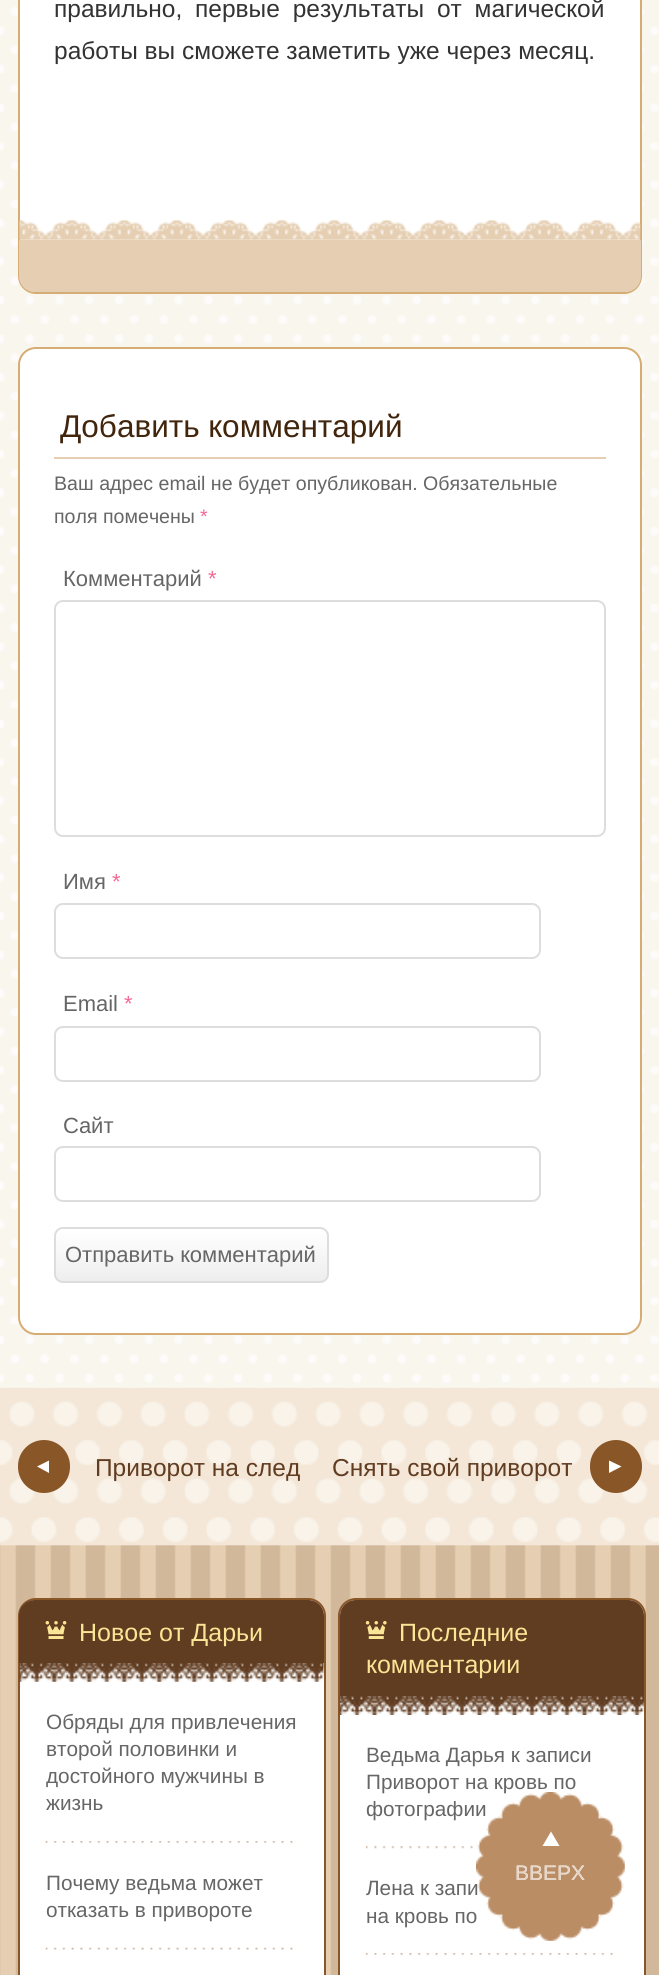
import math
import cairo



def draw_spaced(context, x, y, s, letter, word):
    context.move_to(x, y)
    for ch in s:
        context.show_text(ch)
        context.rel_move_to(letter + word * (ch == ' '), 0)


def rounded_rect(context, x, y, w, h, r):
    context.new_sub_path()
    for i, (u, v) in enumerate([(x + w - r, y + h - r), (x + r, y + h - r), (x + r, y + r), (x + w - r, y + r)]):
        context.arc(u, v, r, i * math.pi / 2, (i + 1) * math.pi / 2)
    context.close_path()


def draw_image(context, path, x, y, w, h):
    context.save()
    context.set_source_surface(cairo.ImageSurface.create_from_png(path), x, y)
    context.rectangle(x, y, w, h)
    context.fill()
    context.restore()


def draw(context):
    context.set_source_rgb(1, 1, 1)
    context.paint()
    draw_image(context, "images/1.png", 0, 0, 659, 1546)
    context.set_source_rgb(1, 1, 1)
    rounded_rect(context, 19, -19, 622, 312, 17)
    context.fill_preserve()
    context.set_source_rgb(214 / 255, 172 / 255, 117 / 255)
    context.stroke()
    draw_image(context, "images/2.png", 19, 219, 622, 21)
    context.set_source_rgb(229 / 255, 206 / 255, 177 / 255)
    context.new_path()
    context.move_to(19, 240)
    context.line_to(641, 240)
    context.line_to(641, 276)
    context.curve_to(641, 285, 634, 292, 625, 292)
    context.line_to(35, 292)
    context.curve_to(26, 292, 19, 285, 19, 276)
    context.close_path()
    context.fill()
    context.set_source_rgb(1, 1, 1)
    rounded_rect(context, 19, 348, 622, 986, 17)
    context.fill_preserve()
    context.set_source_rgb(214 / 255, 172 / 255, 117 / 255)
    context.stroke()
    context.set_source_rgb(229 / 255, 206 / 255, 177 / 255)
    context.rectangle(54, 457, 552, 2)
    context.fill()
    rounded_rect(context, 55, 601, 550, 235, 8)
    context.set_source_rgb(221 / 255, 221 / 255, 221 / 255)
    context.stroke()
    rounded_rect(context, 55, 904, 485, 54, 8)
    context.stroke()
    rounded_rect(context, 55, 1027, 485, 54, 8)
    context.stroke()
    rounded_rect(context, 55, 1147, 485, 54, 8)
    context.stroke()
    context.save()
    rounded_rect(context, 54, 1227, 275, 56, 9)
    context.clip()
    gradient = cairo.LinearGradient(192, 1229, 192, 1281)
    gradient.add_color_stop_rgba(0, 1, 1, 1, 1)
    gradient.add_color_stop_rgba(1, 238 / 255, 238 / 255, 238 / 255, 1)
    context.set_source(gradient)
    context.rectangle(54, 1229, 275, 52)
    context.fill()
    context.restore()
    rounded_rect(context, 55, 1228, 273, 54, 8)
    context.stroke()
    draw_image(context, "images/3.png", 0, 1387, 659, 159)
    context.set_source_rgb(137 / 255, 86 / 255, 40 / 255)
    rounded_rect(context, 18, 1440, 52, 53, 26)
    context.fill()
    context.set_source_rgb(1, 1, 1)
    context.new_path()
    context.move_to(49, 1473)
    context.line_to(37, 1466.5)
    context.line_to(49, 1460.5)
    context.close_path()
    context.fill()
    context.set_source_rgb(137 / 255, 86 / 255, 40 / 255)
    rounded_rect(context, 590, 1440, 52, 53, 26)
    context.fill()
    context.set_source_rgb(1, 1, 1)
    context.new_path()
    context.move_to(609, 1460.5)
    context.line_to(621.5, 1466.5)
    context.line_to(609, 1473)
    context.close_path()
    context.fill()
    draw_image(context, "images/4.png", 0, 1545, 659, 430)
    rounded_rect(context, 19, 1599, 306, 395, 17)
    context.fill_preserve()
    context.set_source_rgb(137 / 255, 86 / 255, 40 / 255)
    context.stroke()
    context.set_source_rgb(96 / 255, 60 / 255, 33 / 255)
    context.new_path()
    context.move_to(35, 1600)
    context.line_to(308, 1600)
    context.curve_to(317, 1600, 324, 1607, 324, 1616)
    context.line_to(324, 1663)
    context.line_to(19, 1663)
    context.line_to(19, 1616)
    context.curve_to(19, 1607, 26, 1600, 35, 1600)
    context.close_path()
    context.fill()
    draw_image(context, "images/5.png", 45, 1621, 22, 18)
    draw_image(context, "images/6.png", 19, 1663, 305, 19)
    draw_image(context, "images/7.png", 45, 1841, 248, 3)
    draw_image(context, "images/8.png", 45, 1947, 248, 3)
    context.set_source_rgb(1, 1, 1)
    rounded_rect(context, 339, 1599, 306, 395, 17)
    context.fill_preserve()
    context.set_source_rgb(137 / 255, 86 / 255, 40 / 255)
    context.stroke()
    context.set_source_rgb(96 / 255, 60 / 255, 33 / 255)
    context.new_path()
    context.move_to(356, 1600)
    context.line_to(628, 1600)
    context.curve_to(637, 1600, 644, 1607, 644, 1616)
    context.line_to(644, 1696)
    context.line_to(340, 1696)
    context.line_to(340, 1616)
    context.curve_to(340, 1607, 347, 1600, 356, 1600)
    context.close_path()
    context.fill()
    draw_image(context, "images/9.png", 365, 1621, 22, 18)
    draw_image(context, "images/10.png", 339, 1696, 305, 19)
    draw_image(context, "images/11.png", 365, 1846, 115, 3)
    draw_image(context, "images/12.png", 365, 1953, 248, 3)
    context.select_font_face("Liberation Sans")
    context.set_font_size(24.5)
    context.set_source_rgb(51 / 255, 51 / 255, 51 / 255)
    draw_spaced(context, 54, 17, "правильно, первые результаты от магической", 0, 6)
    context.move_to(54, 59)
    context.show_text("работы вы сможете заметить уже через месяц.")
    context.set_font_size(31.5)
    context.set_source_rgb(65 / 255, 37 / 255, 12 / 255)
    context.move_to(60, 437)
    context.show_text("Добавить комментарий")
    context.set_font_size(19.6)
    context.set_source_rgb(102 / 255, 102 / 255, 102 / 255)
    context.move_to(54, 490)
    context.show_text("Ваш адрес email не будет опубликован.")
    context.move_to(423, 490)
    context.show_text("Обязательные")
    context.move_to(54, 523)
    context.show_text("поля помечены")
    context.set_source_rgb(245 / 255, 105 / 255, 147 / 255)
    context.move_to(200, 523)
    context.show_text("*")
    context.set_font_size(22)
    context.set_source_rgb(102 / 255, 102 / 255, 102 / 255)
    context.move_to(63, 586)
    context.show_text("Комментарий")
    context.set_source_rgb(245 / 255, 105 / 255, 147 / 255)
    context.move_to(208, 586)
    context.show_text("*")
    context.set_source_rgb(102 / 255, 102 / 255, 102 / 255)
    context.move_to(63, 889)
    context.show_text("Имя")
    context.set_source_rgb(245 / 255, 105 / 255, 147 / 255)
    context.move_to(112, 889)
    context.show_text("*")
    context.set_source_rgb(102 / 255, 102 / 255, 102 / 255)
    context.move_to(63, 1011)
    context.show_text("Email")
    context.set_source_rgb(245 / 255, 105 / 255, 147 / 255)
    context.move_to(124, 1011)
    context.show_text("*")
    context.set_source_rgb(102 / 255, 102 / 255, 102 / 255)
    context.move_to(63, 1133)
    context.show_text("Сайт")
    context.move_to(65, 1262)
    context.show_text("Отправить комментарий")
    context.set_font_size(24.5)
    context.set_source_rgb(96 / 255, 60 / 255, 33 / 255)
    context.move_to(95, 1476)
    context.show_text("Приворот на след")
    context.move_to(332, 1476)
    context.show_text("Снять свой приворот")
    context.set_font_size(25)
    context.set_source_rgb(250 / 255, 228 / 255, 149 / 255)
    context.move_to(79, 1641)
    context.show_text("Новое от Дарьи")
    context.set_font_size(20.75)
    context.set_source_rgb(102 / 255, 102 / 255, 102 / 255)
    context.move_to(46, 1729)
    context.show_text("Обряды для привлечения")
    context.move_to(46, 1756)
    context.show_text("второй половинки и")
    context.save()
    context.rectangle(46, 1710, 252, 108)
    context.clip()
    context.move_to(46, 1783)
    context.show_text("достойного мужчины в")
    context.restore()
    context.move_to(46, 1810)
    context.show_text("жизнь")
    context.move_to(46, 1890)
    context.show_text("Почему ведьма может")
    context.move_to(46, 1917)
    context.show_text("отказать в привороте")
    context.set_font_size(25)
    context.set_source_rgb(250 / 255, 228 / 255, 149 / 255)
    context.move_to(399, 1641)
    context.show_text("Последние")
    context.move_to(366, 1673)
    context.show_text("комментарии")
    context.set_font_size(20.75)
    context.set_source_rgb(102 / 255, 102 / 255, 102 / 255)
    context.move_to(366, 1762)
    context.show_text("Ведьма Дарья к записи")
    context.move_to(366, 1789)
    context.show_text("Приворот на кровь по")
    context.move_to(366, 1816)
    context.show_text("фотографии")
    context.move_to(366, 1895)
    context.show_text("Лена к запи")
    context.move_to(366, 1923)
    context.show_text("на кровь по")
    draw_image(context, "images/13.png", 476, 1792, 149, 149)
    context.set_source_rgb(1, 1, 1)
    context.new_path()
    context.move_to(542.5, 1846)
    context.line_to(551, 1831.5)
    context.line_to(559.5, 1846)
    context.close_path()
    context.fill()
    context.set_font_size(21)
    context.move_to(515, 1880)
    context.show_text("ВВЕРХ")
    context.set_source_rgb(230 / 255, 214 / 255, 200 / 255)
    context.move_to(515, 1880)
    context.show_text("ВВЕРХ")


surface = cairo.ImageSurface(cairo.Format.RGB24, 659, 1975)
context = cairo.Context(surface)
options = cairo.FontOptions()
options.set_hint_metrics(cairo.HintMetrics.OFF)
options.set_hint_style(cairo.HintStyle.NONE)
context.set_font_options(options)
context.set_miter_limit(4)
draw(context)
surface.write_to_png("out.png")
